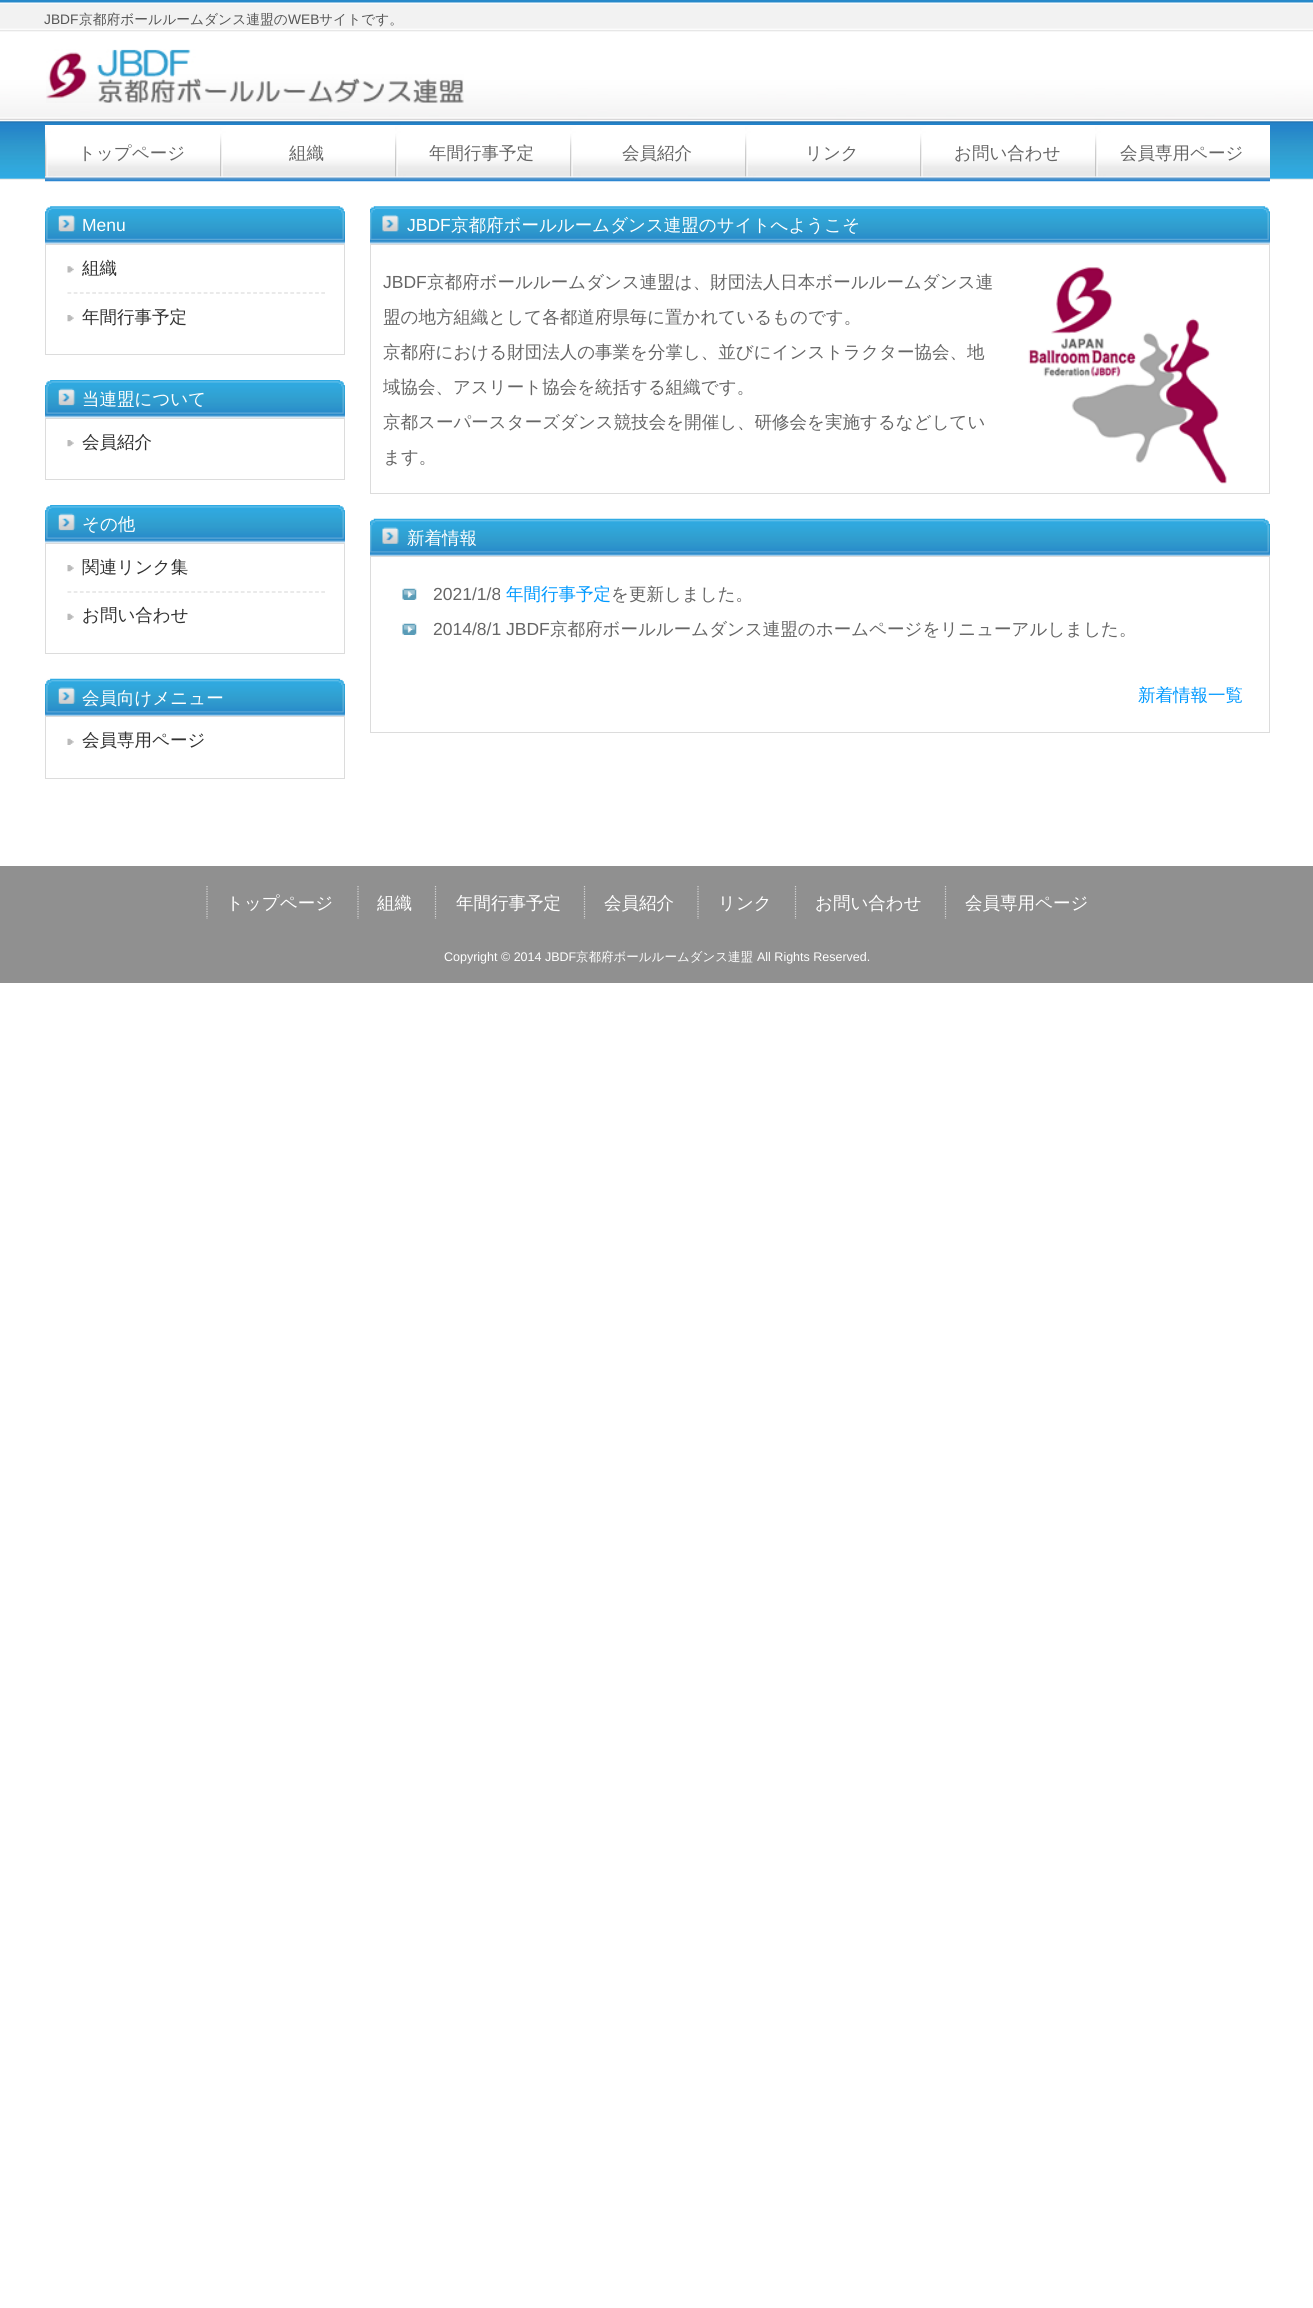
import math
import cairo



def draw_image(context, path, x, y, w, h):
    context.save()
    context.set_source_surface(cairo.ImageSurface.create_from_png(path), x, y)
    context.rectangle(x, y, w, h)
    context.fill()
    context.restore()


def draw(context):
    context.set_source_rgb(1, 1, 1)
    context.paint()
    draw_image(context, "images/1.png", 0, 0, 1313, 180)
    draw_image(context, "images/2.png", 46, 49, 418, 54)
    draw_image(context, "images/3.png", 45, 125, 175, 57)
    draw_image(context, "images/3.png", 220, 125, 175, 57)
    draw_image(context, "images/3.png", 395, 125, 175, 57)
    draw_image(context, "images/4.png", 570, 125, 175, 57)
    draw_image(context, "images/4.png", 745, 125, 175, 57)
    draw_image(context, "images/3.png", 920, 125, 175, 57)
    draw_image(context, "images/3.png", 1095, 125, 175, 57)
    draw_image(context, "images/5.png", 45, 206, 300, 38)
    context.rectangle(45.5, 244.5, 299, 110)
    context.set_source_rgb(220 / 255, 220 / 255, 220 / 255)
    context.set_line_width(1)
    context.stroke()
    context.new_path()
    context.move_to(67.5, 293)
    context.line_to(325, 293)
    context.set_line_width(1.2)
    context.set_dash([3.75, 2.44])
    context.stroke()
    draw_image(context, "images/6.png", 67, 266, 7, 7)
    draw_image(context, "images/7.png", 67, 315, 7, 7)
    draw_image(context, "images/8.png", 45, 380, 300, 38)
    context.rectangle(45.5, 418.5, 299, 61)
    context.set_line_width(1)
    context.set_dash([])
    context.stroke()
    draw_image(context, "images/7.png", 67, 440, 7, 7)
    draw_image(context, "images/8.png", 45, 505, 300, 38)
    context.rectangle(45.5, 543.5, 299, 110)
    context.stroke()
    context.new_path()
    context.move_to(67.5, 592)
    context.line_to(325, 592)
    context.set_line_width(1.2)
    context.set_dash([3.75, 2.44])
    context.stroke()
    draw_image(context, "images/7.png", 67, 565, 7, 7)
    draw_image(context, "images/9.png", 67, 613, 7, 7)
    draw_image(context, "images/10.png", 45, 678, 300, 38)
    context.rectangle(45.5, 716.5, 299, 62)
    context.set_line_width(1)
    context.set_dash([])
    context.stroke()
    draw_image(context, "images/9.png", 67, 738, 7, 7)
    draw_image(context, "images/11.png", 370, 206, 900, 38)
    context.rectangle(370.5, 244.5, 899, 249)
    context.stroke()
    draw_image(context, "images/12.png", 1028, 267, 199, 217)
    draw_image(context, "images/13.png", 370, 518, 900, 38)
    context.rectangle(370.5, 556.5, 899, 176)
    context.stroke()
    draw_image(context, "images/14.png", 402, 588, 15, 12)
    draw_image(context, "images/14.png", 402, 623, 15, 12)
    context.set_source_rgb(144 / 255, 144 / 255, 144 / 255)
    context.rectangle(0, 866, 1313, 117)
    context.fill()
    context.new_path()
    context.move_to(207, 886)
    context.line_to(207, 919)
    context.set_source_rgb(213 / 255, 213 / 255, 213 / 255)
    context.set_line_width(1.2)
    context.set_dash([1.25, 1.25])
    context.stroke()
    context.new_path()
    context.move_to(358, 886)
    context.line_to(358, 919)
    context.stroke()
    context.new_path()
    context.move_to(435.5, 886)
    context.line_to(435.5, 919)
    context.stroke()
    context.new_path()
    context.move_to(584.5, 886)
    context.line_to(584.5, 919)
    context.stroke()
    context.new_path()
    context.move_to(698, 886)
    context.line_to(698, 919)
    context.stroke()
    context.new_path()
    context.move_to(795.5, 886)
    context.line_to(795.5, 919)
    context.stroke()
    context.new_path()
    context.move_to(945.5, 886)
    context.line_to(945.5, 919)
    context.stroke()
    context.select_font_face("Liberation Sans")
    context.set_font_size(13.75)
    context.set_source_rgb(85 / 255, 85 / 255, 85 / 255)
    context.move_to(44, 24)
    context.show_text("JBDF")
    context.select_font_face("WenQuanYi Zen Hei Medium")
    context.move_to(79, 24)
    context.show_text("京都府ボールルームダンス連盟の")
    context.select_font_face("Liberation Sans")
    context.move_to(288, 24)
    context.show_text("WEB")
    context.select_font_face("WenQuanYi Zen Hei Medium")
    context.move_to(319, 24)
    context.show_text("サイトです。")
    context.set_font_size(17.5)
    context.set_source_rgb(102 / 255, 102 / 255, 102 / 255)
    context.move_to(78, 159)
    context.show_text("トップページ")
    context.move_to(289, 159)
    context.show_text("組織")
    context.move_to(429, 159)
    context.show_text("年間行事予定")
    context.move_to(622, 159)
    context.show_text("会員紹介")
    context.move_to(805, 159)
    context.show_text("リンク")
    context.move_to(954, 159)
    context.show_text("お問い合わせ")
    context.move_to(1120, 159)
    context.show_text("会員専用ページ")
    context.select_font_face("Liberation Sans")
    context.set_source_rgb(1, 1, 1)
    context.move_to(82, 231)
    context.show_text("Menu")
    context.select_font_face("WenQuanYi Zen Hei Medium")
    context.set_source_rgb(49 / 255, 49 / 255, 49 / 255)
    context.move_to(82, 274)
    context.show_text("組織")
    context.move_to(82, 323)
    context.show_text("年間行事予定")
    context.set_source_rgb(1, 1, 1)
    context.move_to(82, 405)
    context.show_text("当連盟について")
    context.set_source_rgb(49 / 255, 49 / 255, 49 / 255)
    context.move_to(82, 448)
    context.show_text("会員紹介")
    context.set_source_rgb(1, 1, 1)
    context.move_to(82, 530)
    context.show_text("その他")
    context.set_source_rgb(49 / 255, 49 / 255, 49 / 255)
    context.move_to(82, 573)
    context.show_text("関連リンク集")
    context.move_to(82, 621)
    context.show_text("お問い合わせ")
    context.set_source_rgb(1, 1, 1)
    context.move_to(82, 704)
    context.show_text("会員向けメニュー")
    context.set_source_rgb(49 / 255, 49 / 255, 49 / 255)
    context.move_to(82, 746)
    context.show_text("会員専用ページ")
    context.select_font_face("Liberation Sans")
    context.set_source_rgb(1, 1, 1)
    context.move_to(407, 231)
    context.show_text("JBDF")
    context.select_font_face("WenQuanYi Zen Hei Medium")
    context.move_to(451, 231)
    context.show_text("京都府ボールルームダンス連盟のサイトへようこそ")
    context.select_font_face("Liberation Sans")
    context.set_source_rgb(102 / 255, 102 / 255, 102 / 255)
    context.move_to(383, 288)
    context.show_text("JBDF")
    context.select_font_face("WenQuanYi Zen Hei Medium")
    context.move_to(427, 288)
    context.show_text("京都府ボールルームダンス連盟は、財団法人日本ボールルームダンス連")
    context.move_to(383, 323)
    context.show_text("盟の地方組織として各都道府県毎に置かれているものです。")
    context.move_to(383, 358)
    context.show_text("京都府における財団法人の事業を分掌し、並びにインストラクター協会、地")
    context.move_to(383, 393)
    context.show_text("域協会、アスリート協会を統括する組織です。")
    context.move_to(383, 428)
    context.show_text("京都スーパースターズダンス競技会を開催し、研修会を実施するなどしてい")
    context.move_to(383, 463)
    context.show_text("ます。")
    context.set_source_rgb(1, 1, 1)
    context.move_to(407, 544)
    context.show_text("新着情報")
    context.select_font_face("Liberation Sans")
    context.set_source_rgb(102 / 255, 102 / 255, 102 / 255)
    context.move_to(433, 600)
    context.show_text("2021/1/8")
    context.select_font_face("WenQuanYi Zen Hei Medium")
    context.set_source_rgb(0, 153 / 255, 1)
    context.move_to(506, 600)
    context.show_text("年間行事予定")
    context.set_source_rgb(102 / 255, 102 / 255, 102 / 255)
    context.move_to(611, 600)
    context.show_text("を更新しました。")
    context.select_font_face("Liberation Sans")
    context.move_to(433, 635)
    context.show_text("2014/8/1 JBDF")
    context.select_font_face("WenQuanYi Zen Hei Medium")
    context.move_to(550, 635)
    context.show_text("京都府ボールルームダンス連盟のホームページをリニューアルしました。")
    context.set_source_rgb(0, 153 / 255, 1)
    context.move_to(1138, 701)
    context.show_text("新着情報一覧")
    context.set_source_rgb(1, 1, 1)
    context.move_to(226, 909)
    context.show_text("トップページ")
    context.move_to(377, 909)
    context.show_text("組織")
    context.move_to(456, 909)
    context.show_text("年間行事予定")
    context.move_to(604, 909)
    context.show_text("会員紹介")
    context.move_to(718, 909)
    context.show_text("リンク")
    context.move_to(815, 909)
    context.show_text("お問い合わせ")
    context.move_to(965, 909)
    context.show_text("会員専用ページ")
    context.select_font_face("Liberation Sans")
    context.set_font_size(12.5)
    context.move_to(444, 961)
    context.show_text("Copyright © 2014 JBDF")
    context.select_font_face("WenQuanYi Zen Hei Medium")
    context.move_to(576, 961)
    context.show_text("京都府ボールルームダンス連盟")
    context.select_font_face("Liberation Sans")
    context.move_to(757, 961)
    context.show_text("All Rights Reserved.")


surface = cairo.ImageSurface(cairo.Format.RGB24, 1313, 2308)
context = cairo.Context(surface)
options = cairo.FontOptions()
options.set_hint_metrics(cairo.HintMetrics.OFF)
options.set_hint_style(cairo.HintStyle.NONE)
context.set_font_options(options)
context.set_miter_limit(4)
draw(context)
surface.write_to_png("out.png")
